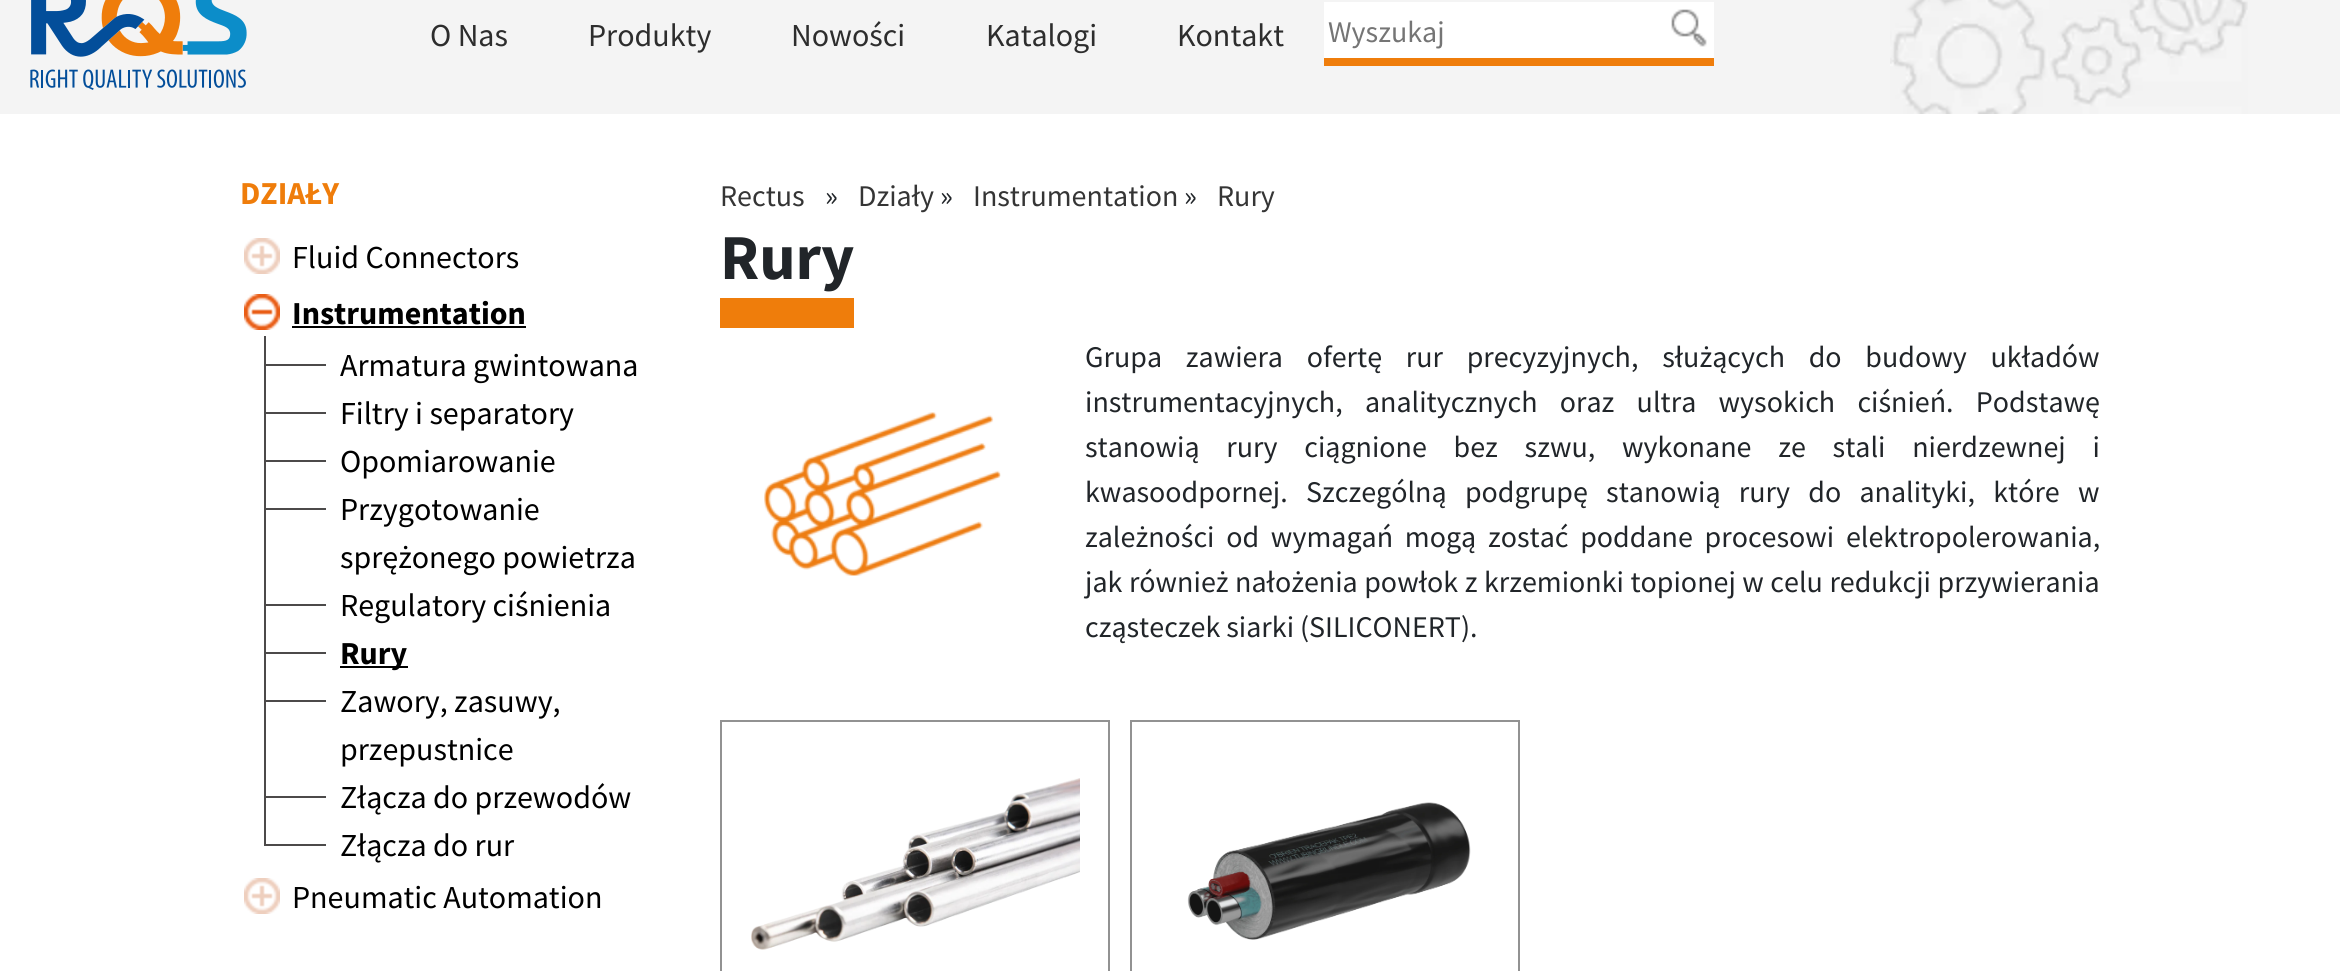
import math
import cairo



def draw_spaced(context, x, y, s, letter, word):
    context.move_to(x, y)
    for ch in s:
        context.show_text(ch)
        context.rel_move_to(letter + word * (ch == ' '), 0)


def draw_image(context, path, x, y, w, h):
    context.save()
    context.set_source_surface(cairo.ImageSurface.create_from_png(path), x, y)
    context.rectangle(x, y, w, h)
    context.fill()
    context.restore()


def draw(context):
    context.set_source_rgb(1, 1, 1)
    context.paint()
    context.set_source_rgb(244 / 255, 244 / 255, 244 / 255)
    context.rectangle(0, 0, 2340, 114)
    context.fill()
    draw_image(context, "images/1.png", 1890, 0, 358, 114)
    draw_image(context, "images/2.png", 30, 0, 217, 90)
    context.set_source_rgb(1, 1, 1)
    context.rectangle(1324, 2, 390, 56)
    context.fill()
    context.set_source_rgb(239 / 255, 125 / 255, 11 / 255)
    context.rectangle(1324, 58, 390, 8)
    context.fill()
    draw_image(context, "images/3.png", 1671, 9, 36, 38)
    draw_image(context, "images/4.png", 244, 238, 36, 36)
    draw_image(context, "images/5.png", 244, 294, 36, 36)
    context.set_source_rgb(0, 0, 0)
    context.rectangle(292, 326, 234, 2)
    context.fill()
    context.set_source_rgb(76 / 255, 74 / 255, 74 / 255)
    context.rectangle(264, 364, 62, 2)
    context.fill()
    context.rectangle(264, 336, 2, 52)
    context.fill()
    context.rectangle(264, 412, 62, 2)
    context.fill()
    context.rectangle(264, 388, 2, 48)
    context.fill()
    context.rectangle(264, 460, 62, 2)
    context.fill()
    context.rectangle(264, 436, 2, 48)
    context.fill()
    context.rectangle(264, 508, 62, 2)
    context.fill()
    context.rectangle(264, 484, 2, 96)
    context.fill()
    context.rectangle(264, 604, 62, 2)
    context.fill()
    context.rectangle(264, 580, 2, 48)
    context.fill()
    context.rectangle(264, 652, 62, 2)
    context.fill()
    context.rectangle(264, 628, 2, 48)
    context.fill()
    context.set_source_rgb(0, 0, 0)
    context.rectangle(340, 666, 68, 2)
    context.fill()
    context.set_source_rgb(76 / 255, 74 / 255, 74 / 255)
    context.rectangle(264, 700, 62, 2)
    context.fill()
    context.rectangle(264, 676, 2, 96)
    context.fill()
    context.rectangle(264, 796, 62, 2)
    context.fill()
    context.rectangle(264, 772, 2, 72)
    context.fill()
    context.rectangle(264, 844, 62, 2)
    context.fill()
    draw_image(context, "images/4.png", 244, 878, 36, 36)
    context.set_source_rgb(239 / 255, 125 / 255, 11 / 255)
    context.rectangle(720, 298, 134, 30)
    context.fill()
    draw_image(context, "images/6.png", 764, 412, 237, 164)
    context.rectangle(721, 721, 388, 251)
    context.set_source_rgb(146 / 255, 146 / 255, 146 / 255)
    context.stroke()
    draw_image(context, "images/7.png", 751, 778, 329, 172)
    context.rectangle(1131, 721, 388, 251)
    context.stroke()
    draw_image(context, "images/8.png", 1187, 802, 284, 138)
    context.select_font_face("Source Sans Pro")
    context.set_font_size(32)
    context.set_source_rgb(45 / 255, 45 / 255, 45 / 255)
    context.move_to(430, 46)
    context.show_text("O Nas")
    context.move_to(588, 46)
    context.show_text("Produkty")
    context.move_to(791, 46)
    context.show_text("Nowości")
    context.move_to(986, 46)
    context.show_text("Katalogi")
    context.move_to(1177, 46)
    context.show_text("Kontakt")
    context.set_font_size(30)
    context.set_source_rgb(117 / 255, 117 / 255, 117 / 255)
    context.move_to(1328, 42)
    context.show_text("Wyszukaj")
    context.select_font_face("Source Sans Pro", cairo.FontSlant.NORMAL, cairo.FontWeight.BOLD)
    context.set_font_size(32)
    context.set_source_rgb(239 / 255, 125 / 255, 11 / 255)
    context.move_to(240, 204)
    context.show_text("DZIAŁY")
    context.select_font_face("Source Sans Pro")
    context.set_source_rgb(0, 0, 0)
    context.move_to(292, 268)
    context.show_text("Fluid Connectors")
    context.select_font_face("Source Sans Pro", cairo.FontSlant.NORMAL, cairo.FontWeight.BOLD)
    context.move_to(292, 324)
    context.show_text("Instrumentation")
    context.select_font_face("Source Sans Pro")
    context.move_to(340, 376)
    context.show_text("Armatura gwintowana")
    context.move_to(340, 424)
    context.show_text("Filtry i separatory")
    context.move_to(340, 472)
    context.show_text("Opomiarowanie")
    context.move_to(340, 520)
    context.show_text("Przygotowanie")
    context.move_to(340, 568)
    context.show_text("sprężonego powietrza")
    context.move_to(340, 616)
    context.show_text("Regulatory ciśnienia")
    context.select_font_face("Source Sans Pro", cairo.FontSlant.NORMAL, cairo.FontWeight.BOLD)
    context.move_to(340, 664)
    context.show_text("Rury")
    context.select_font_face("Source Sans Pro")
    context.move_to(340, 712)
    context.show_text("Zawory, zasuwy,")
    context.move_to(340, 760)
    context.show_text("przepustnice")
    context.move_to(340, 808)
    context.show_text("Złącza do przewodów")
    context.move_to(340, 856)
    context.show_text("Złącza do rur")
    context.move_to(292, 908)
    context.show_text("Pneumatic Automation")
    context.set_font_size(30)
    context.set_source_rgb(53 / 255, 53 / 255, 53 / 255)
    context.move_to(720, 206)
    context.show_text("Rectus")
    context.set_source_rgb(33 / 255, 37 / 255, 41 / 255)
    context.move_to(825, 206)
    context.show_text("»")
    context.set_source_rgb(53 / 255, 53 / 255, 53 / 255)
    context.move_to(858, 206)
    context.show_text("Działy")
    context.set_source_rgb(33 / 255, 37 / 255, 41 / 255)
    context.move_to(940, 206)
    context.show_text("»")
    context.set_source_rgb(53 / 255, 53 / 255, 53 / 255)
    context.move_to(973, 206)
    context.show_text("Instrumentation")
    context.set_source_rgb(33 / 255, 37 / 255, 41 / 255)
    context.move_to(1184, 206)
    context.show_text("»")
    context.set_source_rgb(53 / 255, 53 / 255, 53 / 255)
    context.move_to(1217, 206)
    context.show_text("Rury")
    context.select_font_face("Source Sans Pro", cairo.FontSlant.NORMAL, cairo.FontWeight.BOLD)
    context.set_font_size(64)
    context.set_source_rgb(33 / 255, 37 / 255, 41 / 255)
    context.move_to(720, 279)
    context.show_text("Rury")
    context.select_font_face("Source Sans Pro")
    context.set_font_size(30)
    draw_spaced(context, 1085, 367, "Grupa zawiera ofertę rur precyzyjnych, służących do budowy układów", 0, 17.75)
    draw_spaced(context, 1085, 412, "instrumentacyjnych, analitycznych oraz ultra wysokich ciśnień. Podstawę", 0, 16.25)
    draw_spaced(context, 1085, 457, "stanowią rury ciągnione bez szwu, wykonane ze stali nierdzewnej i", 0, 20.75)
    draw_spaced(context, 1085, 502, "kwasoodpornej. Szczególną podgrupę stanowią rury do analityki, które w", 0, 12.25)
    draw_spaced(context, 1085, 547, "zależności od wymagań mogą zostać poddane procesowi elektropolerowania,", 0, 5.75)
    draw_spaced(context, 1085, 592, "jak również nałożenia powłok z krzemionki topionej w celu redukcji przywierania", 0, 0.5)
    context.move_to(1085, 637)
    context.show_text("cząsteczek siarki (SILICONERT).")


surface = cairo.ImageSurface(cairo.Format.RGB24, 2340, 971)
context = cairo.Context(surface)
options = cairo.FontOptions()
options.set_hint_metrics(cairo.HintMetrics.OFF)
options.set_hint_style(cairo.HintStyle.NONE)
context.set_font_options(options)
context.set_miter_limit(4)
draw(context)
surface.write_to_png("out.png")
